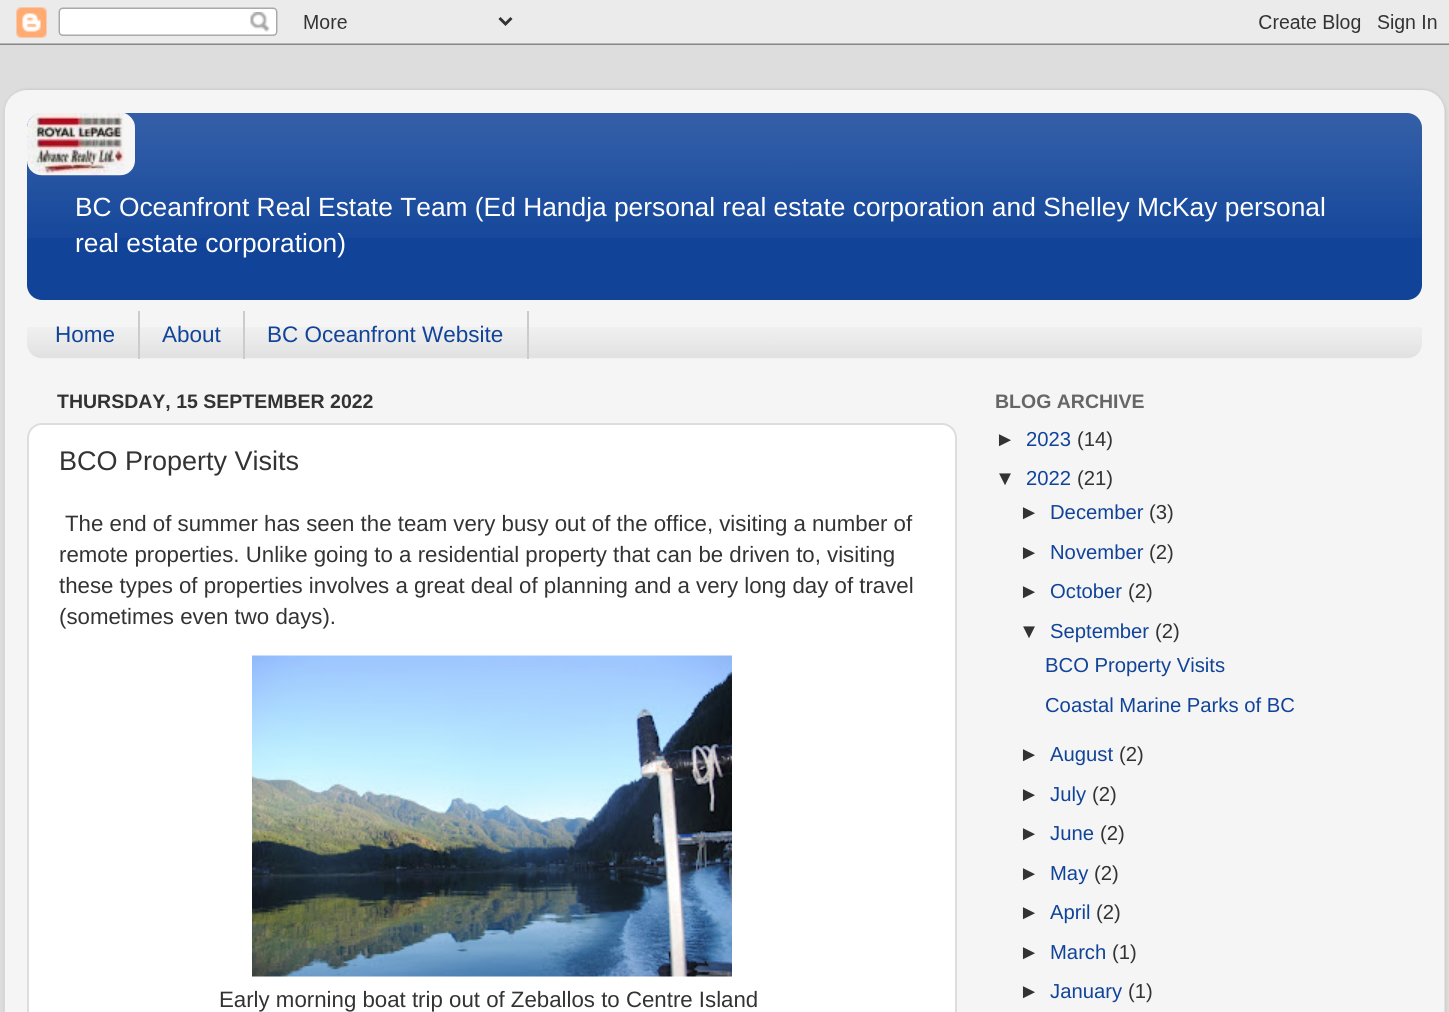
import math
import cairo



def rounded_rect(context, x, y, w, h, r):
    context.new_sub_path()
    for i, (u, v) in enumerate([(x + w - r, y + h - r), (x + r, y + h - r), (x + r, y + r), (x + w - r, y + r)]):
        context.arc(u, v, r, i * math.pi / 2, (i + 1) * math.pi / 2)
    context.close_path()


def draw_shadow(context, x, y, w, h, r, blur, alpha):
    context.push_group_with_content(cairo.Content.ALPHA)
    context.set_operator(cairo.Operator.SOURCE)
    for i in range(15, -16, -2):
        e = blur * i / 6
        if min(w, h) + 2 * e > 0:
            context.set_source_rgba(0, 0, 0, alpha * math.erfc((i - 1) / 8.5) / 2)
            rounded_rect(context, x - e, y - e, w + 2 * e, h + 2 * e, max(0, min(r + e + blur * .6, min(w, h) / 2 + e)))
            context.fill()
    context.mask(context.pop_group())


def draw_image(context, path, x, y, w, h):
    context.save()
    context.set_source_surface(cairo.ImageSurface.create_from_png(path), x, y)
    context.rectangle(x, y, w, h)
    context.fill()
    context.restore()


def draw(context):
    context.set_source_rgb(221 / 255, 221 / 255, 221 / 255)
    context.paint()
    draw_image(context, "images/1.png", 0, 0, 1449, 45)
    context.save()
    context.set_fill_rule(cairo.FillRule.EVEN_ODD)
    context.new_path()
    context.move_to(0, 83)
    context.line_to(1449, 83)
    context.line_to(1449, 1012)
    context.line_to(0, 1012)
    context.close_path()
    context.move_to(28, 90)
    context.line_to(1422, 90)
    context.curve_to(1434.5, 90, 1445, 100.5, 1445, 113)
    context.line_to(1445, 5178)
    context.curve_to(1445, 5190.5, 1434.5, 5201, 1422, 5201)
    context.line_to(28, 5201)
    context.curve_to(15.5, 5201, 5, 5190.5, 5, 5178)
    context.line_to(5, 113)
    context.curve_to(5, 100.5, 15.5, 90, 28, 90)
    context.close_path()
    context.clip()
    context.set_source_rgb(0, 0, 0)
    draw_shadow(context, 5, 90, 1440, 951, 23, 2, 0.15)
    context.restore()
    draw_image(context, "images/2.png", 4, 90, 1441, 922)
    context.set_source_rgb(17 / 255, 68 / 255, 153 / 255)
    rounded_rect(context, 27, 113, 1395, 187, 15)
    context.fill()
    draw_image(context, "images/3.png", 27, 113, 1395, 125)
    draw_image(context, "images/4.png", 27, 113, 108, 63)
    draw_image(context, "images/5.png", 27, 327, 1395, 32)
    context.set_source_rgb(204 / 255, 204 / 255, 204 / 255)
    context.rectangle(138, 311, 2, 48)
    context.fill()
    context.rectangle(243, 311, 2, 48)
    context.fill()
    context.rectangle(527, 311, 2, 48)
    context.fill()
    context.set_source_rgb(1, 1, 1)
    rounded_rect(context, 28, 424, 928, 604, 14)
    context.fill_preserve()
    context.set_source_rgb(221 / 255, 221 / 255, 221 / 255)
    context.stroke()
    draw_image(context, "images/6.png", 252, 655, 480, 322)
    context.select_font_face("Liberation Sans")
    context.set_font_size(26.35)
    context.set_source_rgb(1, 1, 1)
    context.move_to(75, 216)
    context.show_text("BC Oceanfront Real Estate Team (Ed Handja personal real estate corporation and Shelley McKay personal")
    context.move_to(75, 252)
    context.show_text("real estate corporation)")
    context.set_font_size(22.5)
    context.set_source_rgb(17 / 255, 68 / 255, 153 / 255)
    context.move_to(55, 342)
    context.show_text("Home")
    context.move_to(162, 342)
    context.show_text("About")
    context.move_to(267, 342)
    context.show_text("BC Oceanfront Website")
    context.select_font_face("Liberation Sans", cairo.FontSlant.NORMAL, cairo.FontWeight.BOLD)
    context.set_font_size(19.5)
    context.set_source_rgb(51 / 255, 51 / 255, 51 / 255)
    context.move_to(57, 408)
    context.show_text("THURSDAY, 15 SEPTEMBER 2022")
    context.select_font_face("Liberation Sans")
    context.set_font_size(27)
    context.move_to(59, 470)
    context.show_text("BCO Property Visits")
    context.set_font_size(22.25)
    context.move_to(65, 531)
    context.show_text("The end of summer has seen the team very busy out of the office, visiting a number of")
    context.move_to(59, 562)
    context.show_text("remote properties. Unlike going to a residential property that can be driven to, visiting")
    context.move_to(59, 593)
    context.show_text("these types of properties involves a great deal of planning and a very long day of travel")
    context.move_to(59, 624)
    context.show_text("(sometimes even two days).")
    context.move_to(219, 1007)
    context.show_text("Early morning boat trip out of Zeballos to Centre Island")
    context.select_font_face("Liberation Sans", cairo.FontSlant.NORMAL, cairo.FontWeight.BOLD)
    context.set_font_size(19.5)
    context.set_source_rgb(102 / 255, 102 / 255, 102 / 255)
    context.move_to(995, 408)
    context.show_text("BLOG ARCHIVE")
    context.select_font_face("Liberation Sans")
    context.set_font_size(20.25)
    context.set_source_rgb(51 / 255, 51 / 255, 51 / 255)
    context.move_to(995, 446)
    context.show_text("►")
    context.set_source_rgb(17 / 255, 68 / 255, 153 / 255)
    context.move_to(1026, 446)
    context.show_text("2023")
    context.set_source_rgb(51 / 255, 51 / 255, 51 / 255)
    context.move_to(1077, 446)
    context.show_text("(14)")
    context.move_to(995, 485)
    context.show_text("▼")
    context.set_source_rgb(17 / 255, 68 / 255, 153 / 255)
    context.move_to(1026, 485)
    context.show_text("2022")
    context.set_source_rgb(51 / 255, 51 / 255, 51 / 255)
    context.move_to(1077, 485)
    context.show_text("(21)")
    context.move_to(1019, 519)
    context.show_text("►")
    context.set_source_rgb(17 / 255, 68 / 255, 153 / 255)
    context.move_to(1050, 519)
    context.show_text("December")
    context.set_source_rgb(51 / 255, 51 / 255, 51 / 255)
    context.move_to(1149, 519)
    context.show_text("(3)")
    context.move_to(1019, 559)
    context.show_text("►")
    context.set_source_rgb(17 / 255, 68 / 255, 153 / 255)
    context.move_to(1050, 559)
    context.show_text("November")
    context.set_source_rgb(51 / 255, 51 / 255, 51 / 255)
    context.move_to(1149, 559)
    context.show_text("(2)")
    context.move_to(1019, 598)
    context.show_text("►")
    context.set_source_rgb(17 / 255, 68 / 255, 153 / 255)
    context.move_to(1050, 598)
    context.show_text("October")
    context.set_source_rgb(51 / 255, 51 / 255, 51 / 255)
    context.move_to(1128, 598)
    context.show_text("(2)")
    context.move_to(1019, 638)
    context.show_text("▼")
    context.set_source_rgb(17 / 255, 68 / 255, 153 / 255)
    context.move_to(1050, 638)
    context.show_text("September")
    context.set_source_rgb(51 / 255, 51 / 255, 51 / 255)
    context.move_to(1155, 638)
    context.show_text("(2)")
    context.set_source_rgb(17 / 255, 68 / 255, 153 / 255)
    context.move_to(1045, 672)
    context.show_text("BCO Property Visits")
    context.move_to(1045, 712)
    context.show_text("Coastal Marine Parks of BC")
    context.set_source_rgb(51 / 255, 51 / 255, 51 / 255)
    context.move_to(1019, 761)
    context.show_text("►")
    context.set_source_rgb(17 / 255, 68 / 255, 153 / 255)
    context.move_to(1050, 761)
    context.show_text("August")
    context.set_source_rgb(51 / 255, 51 / 255, 51 / 255)
    context.move_to(1119, 761)
    context.show_text("(2)")
    context.move_to(1019, 801)
    context.show_text("►")
    context.set_source_rgb(17 / 255, 68 / 255, 153 / 255)
    context.move_to(1050, 801)
    context.show_text("July")
    context.set_source_rgb(51 / 255, 51 / 255, 51 / 255)
    context.move_to(1092, 801)
    context.show_text("(2)")
    context.move_to(1019, 840)
    context.show_text("►")
    context.set_source_rgb(17 / 255, 68 / 255, 153 / 255)
    context.move_to(1050, 840)
    context.show_text("June")
    context.set_source_rgb(51 / 255, 51 / 255, 51 / 255)
    context.move_to(1100, 840)
    context.show_text("(2)")
    context.move_to(1019, 880)
    context.show_text("►")
    context.set_source_rgb(17 / 255, 68 / 255, 153 / 255)
    context.move_to(1050, 880)
    context.show_text("May")
    context.set_source_rgb(51 / 255, 51 / 255, 51 / 255)
    context.move_to(1094, 880)
    context.show_text("(2)")
    context.move_to(1019, 919)
    context.show_text("►")
    context.set_source_rgb(17 / 255, 68 / 255, 153 / 255)
    context.move_to(1050, 919)
    context.show_text("April")
    context.set_source_rgb(51 / 255, 51 / 255, 51 / 255)
    context.move_to(1096, 919)
    context.show_text("(2)")
    context.move_to(1019, 959)
    context.show_text("►")
    context.set_source_rgb(17 / 255, 68 / 255, 153 / 255)
    context.move_to(1050, 959)
    context.show_text("March")
    context.set_source_rgb(51 / 255, 51 / 255, 51 / 255)
    context.move_to(1112, 959)
    context.show_text("(1)")
    context.move_to(1019, 998)
    context.show_text("►")
    context.set_source_rgb(17 / 255, 68 / 255, 153 / 255)
    context.move_to(1050, 998)
    context.show_text("January")
    context.set_source_rgb(51 / 255, 51 / 255, 51 / 255)
    context.move_to(1128, 998)
    context.show_text("(1)")


surface = cairo.ImageSurface(cairo.Format.RGB24, 1449, 1012)
context = cairo.Context(surface)
options = cairo.FontOptions()
options.set_hint_metrics(cairo.HintMetrics.OFF)
options.set_hint_style(cairo.HintStyle.NONE)
context.set_font_options(options)
context.set_miter_limit(4)
draw(context)
surface.write_to_png("out.png")
